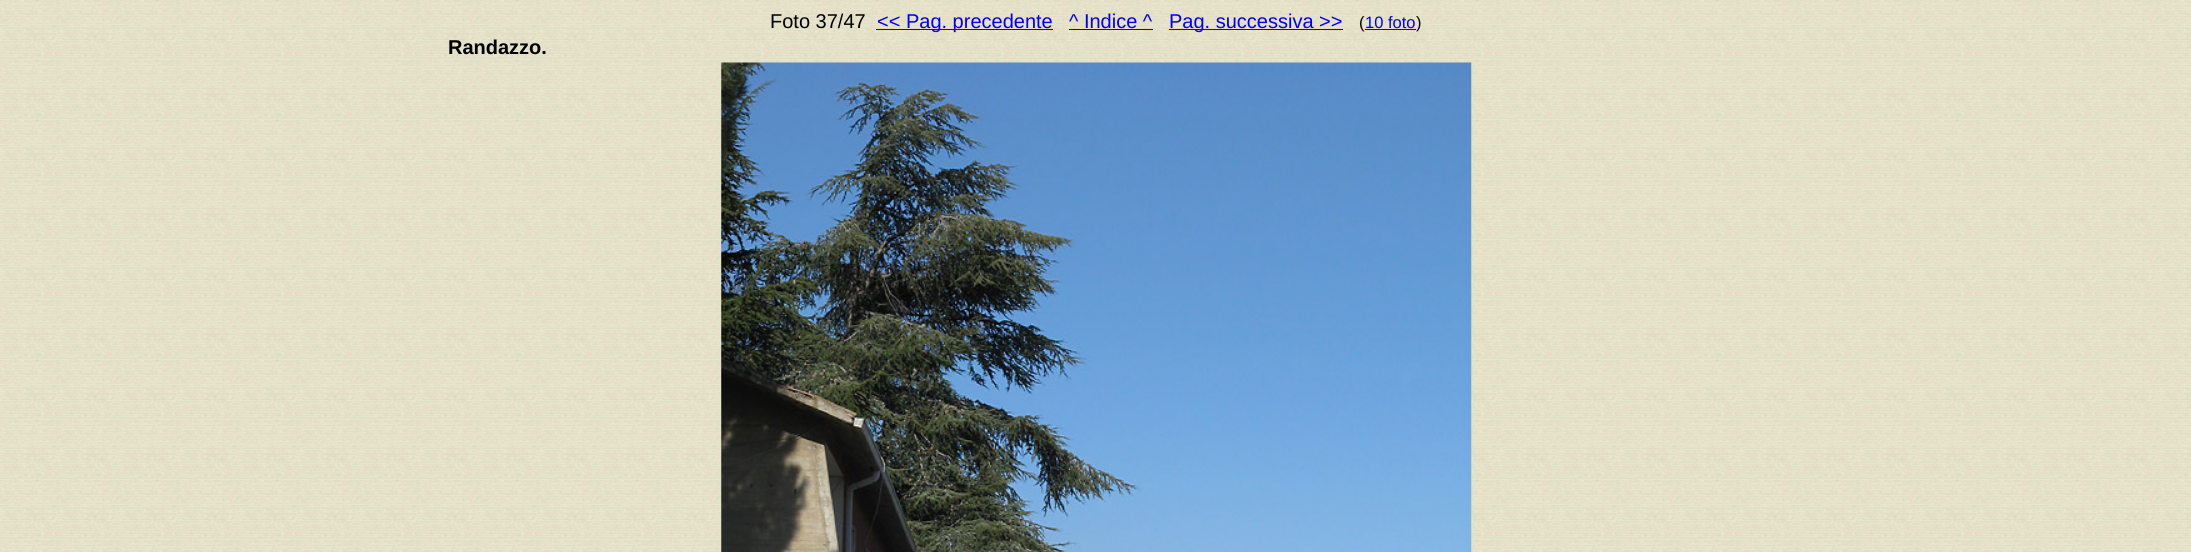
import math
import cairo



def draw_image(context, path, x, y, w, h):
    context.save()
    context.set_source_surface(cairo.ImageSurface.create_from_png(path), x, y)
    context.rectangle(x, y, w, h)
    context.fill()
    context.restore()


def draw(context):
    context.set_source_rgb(1, 1, 1)
    context.paint()
    draw_image(context, "images/1.png", 0, 0, 2191, 552)
    context.set_source_rgb(0, 0, 238 / 255)
    context.rectangle(876, 29, 177, 1)
    context.fill()
    context.rectangle(1069, 29, 84, 1)
    context.fill()
    context.rectangle(1169, 29, 174, 1)
    context.fill()
    context.rectangle(1365, 29, 51, 1)
    context.fill()
    draw_image(context, "images/2.png", 721, 62, 751, 490)
    context.select_font_face("Liberation Sans")
    context.set_font_size(20)
    context.set_source_rgb(0, 0, 0)
    context.move_to(770, 28)
    context.show_text("Foto 37/47")
    context.set_source_rgb(0, 0, 238 / 255)
    context.move_to(877, 28)
    context.show_text("<< Pag. precedente")
    context.move_to(1069, 28)
    context.show_text("^ Indice ^")
    context.move_to(1169, 28)
    context.show_text("Pag. successiva >>")
    context.set_font_size(16.5)
    context.set_source_rgb(0, 0, 0)
    context.move_to(1359, 28)
    context.show_text("(")
    context.set_source_rgb(0, 0, 238 / 255)
    context.move_to(1365, 28)
    context.show_text("10 foto")
    context.set_source_rgb(0, 0, 0)
    context.move_to(1416, 28)
    context.show_text(")")
    context.select_font_face("Liberation Sans", cairo.FontSlant.NORMAL, cairo.FontWeight.BOLD)
    context.set_font_size(20)
    context.move_to(448, 54)
    context.show_text("Randazzo.")


surface = cairo.ImageSurface(cairo.Format.RGB24, 2191, 552)
context = cairo.Context(surface)
options = cairo.FontOptions()
options.set_hint_metrics(cairo.HintMetrics.OFF)
options.set_hint_style(cairo.HintStyle.NONE)
context.set_font_options(options)
context.set_miter_limit(4)
draw(context)
surface.write_to_png("out.png")
